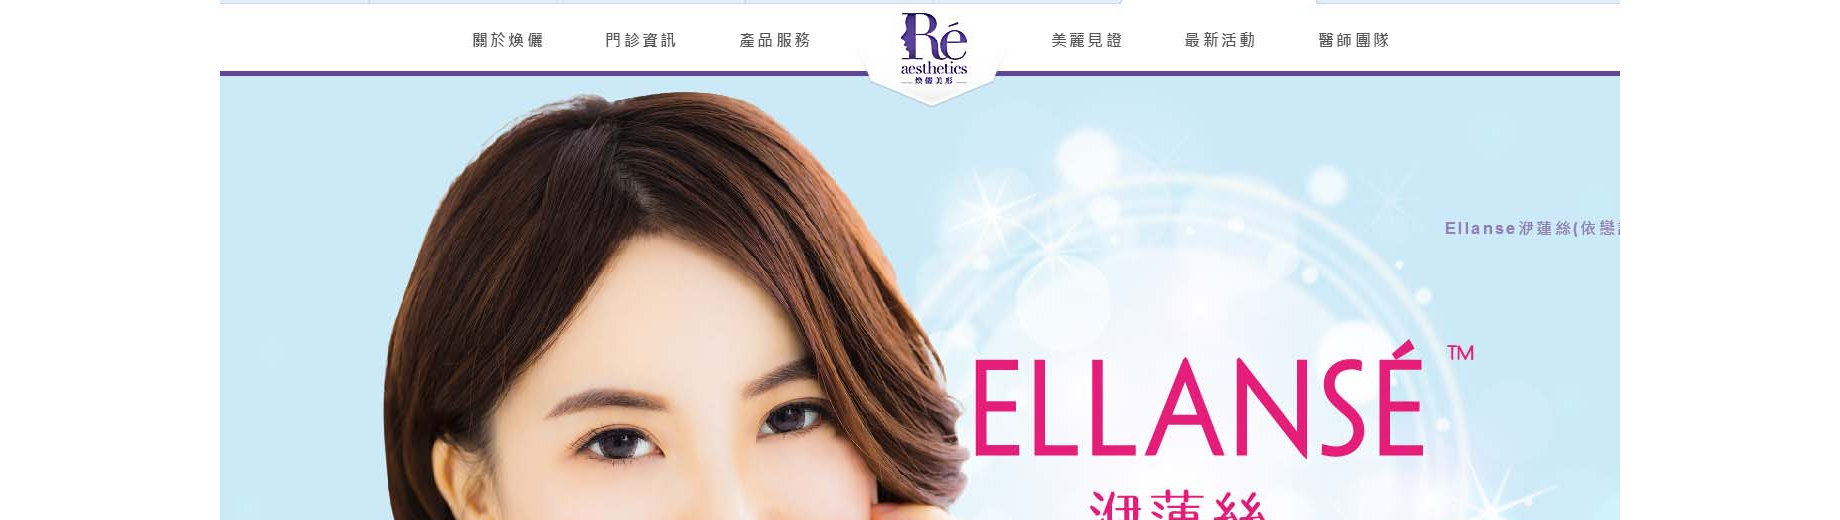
import math
import cairo



def draw_image(context, path, x, y, w, h):
    context.save()
    context.set_source_surface(cairo.ImageSurface.create_from_png(path), x, y)
    context.rectangle(x, y, w, h)
    context.fill()
    context.restore()


def draw(context):
    context.set_source_rgb(1, 1, 1)
    context.paint()
    draw_image(context, "images/1.png", 220, 0, 1400, 520)


surface = cairo.ImageSurface(cairo.Format.RGB24, 1840, 520)
context = cairo.Context(surface)
options = cairo.FontOptions()
options.set_hint_metrics(cairo.HintMetrics.OFF)
options.set_hint_style(cairo.HintStyle.NONE)
context.set_font_options(options)
context.set_miter_limit(4)
draw(context)
surface.write_to_png("out.png")
